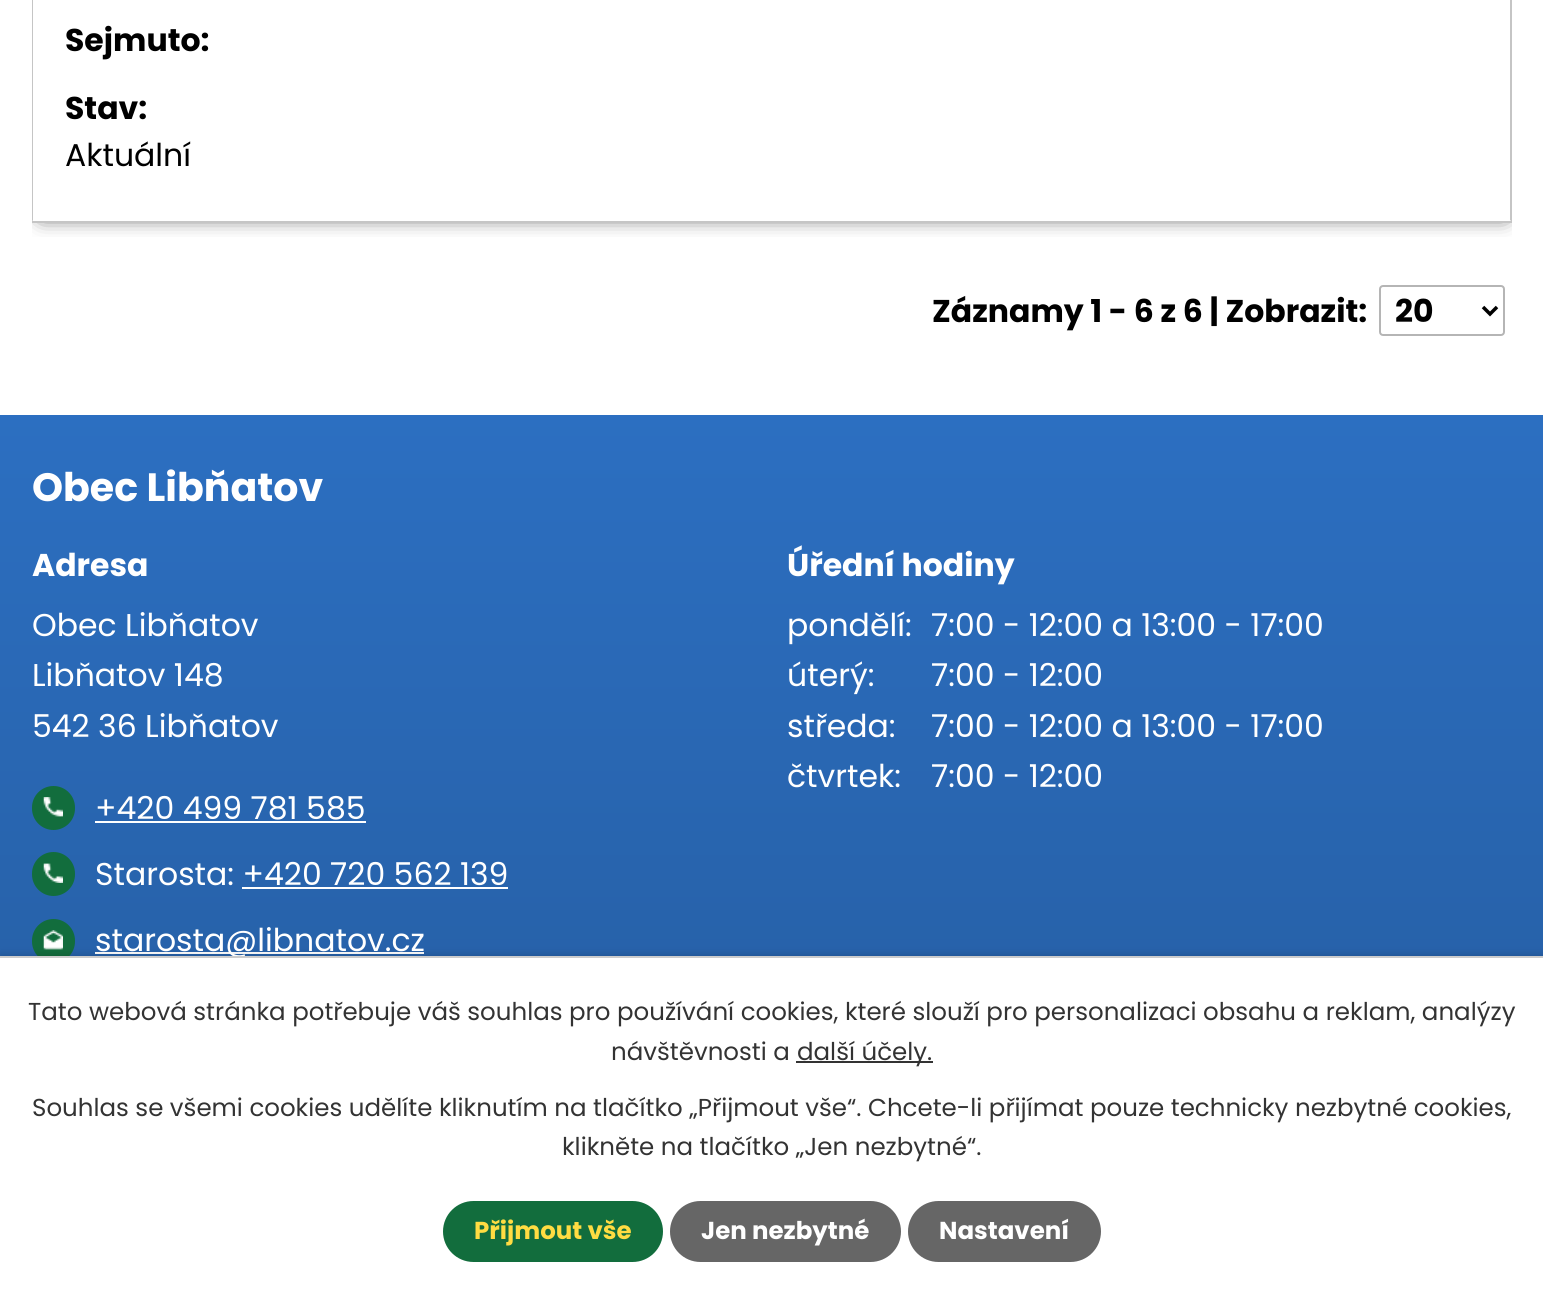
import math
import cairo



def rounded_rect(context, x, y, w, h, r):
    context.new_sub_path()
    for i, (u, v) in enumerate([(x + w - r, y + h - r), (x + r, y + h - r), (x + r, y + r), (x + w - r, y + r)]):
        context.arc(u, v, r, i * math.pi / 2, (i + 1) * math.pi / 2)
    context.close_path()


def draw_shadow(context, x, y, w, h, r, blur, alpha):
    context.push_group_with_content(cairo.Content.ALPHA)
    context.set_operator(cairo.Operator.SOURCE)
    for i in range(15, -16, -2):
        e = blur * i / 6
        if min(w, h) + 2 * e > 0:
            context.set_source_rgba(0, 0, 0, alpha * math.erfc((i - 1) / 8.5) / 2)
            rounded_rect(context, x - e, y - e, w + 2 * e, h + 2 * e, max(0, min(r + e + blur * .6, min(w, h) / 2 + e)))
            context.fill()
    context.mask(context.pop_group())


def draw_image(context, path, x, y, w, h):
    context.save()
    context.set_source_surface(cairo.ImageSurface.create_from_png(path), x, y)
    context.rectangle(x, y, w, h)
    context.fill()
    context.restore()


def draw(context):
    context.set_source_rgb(1, 1, 1)
    context.paint()
    context.save()
    context.rectangle(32, 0, 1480, 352)
    context.clip()
    context.rectangle(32, 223, 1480, 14)
    context.clip()
    context.set_source_rgb(17 / 255, 17 / 255, 17 / 255)
    draw_shadow(context, 42, -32, 1463, 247, 0, 10.5, 1)
    context.restore()
    context.set_source_rgb(197 / 255, 197 / 255, 197 / 255)
    context.new_path()
    context.move_to(1512, -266)
    context.line_to(1512, 222)
    context.line_to(1510, 220)
    context.line_to(1510, -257)
    context.close_path()
    context.fill()
    context.rectangle(32, 221, 1480, 2)
    context.fill()
    context.new_path()
    context.move_to(32, 222)
    context.line_to(32, -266)
    context.line_to(33, -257)
    context.line_to(33, 220)
    context.close_path()
    context.fill()
    rounded_rect(context, 1380, 286, 124, 49, 3)
    context.set_source_rgb(181 / 255, 181 / 255, 181 / 255)
    context.stroke()
    context.new_path()
    context.move_to(1483, 307)
    context.line_to(1490, 314)
    context.line_to(1497, 307)
    context.set_source_rgb(0, 0, 0)
    context.set_line_width(3.5)
    context.stroke()
    gradient = cairo.LinearGradient(772, 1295, 772, 415)
    gradient.add_color_stop_rgba(0, 36 / 255, 90 / 255, 156 / 255, 1)
    gradient.add_color_stop_rgba(1, 44 / 255, 111 / 255, 193 / 255, 1)
    context.set_source(gradient)
    context.rectangle(0, 415, 1543, 541)
    context.fill()
    context.set_source_rgb(18 / 255, 109 / 255, 61 / 255)
    rounded_rect(context, 32, 786, 43, 44, 21.5)
    context.fill()
    draw_image(context, "images/1.png", 43, 797, 20, 20)
    context.set_source_rgb(1, 1, 1)
    context.rectangle(95, 821, 271, 2)
    context.fill()
    context.set_source_rgb(18 / 255, 109 / 255, 61 / 255)
    rounded_rect(context, 32, 852, 43, 44, 21.5)
    context.fill()
    draw_image(context, "images/2.png", 43, 863, 20, 20)
    context.set_source_rgb(1, 1, 1)
    context.rectangle(242, 887, 266, 2)
    context.fill()
    context.set_source_rgb(18 / 255, 109 / 255, 61 / 255)
    rounded_rect(context, 32, 919, 43, 44, 21.5)
    context.fill()
    draw_image(context, "images/3.png", 43, 930, 20, 20)
    context.set_source_rgb(1, 1, 1)
    context.rectangle(95, 952, 329, 2)
    context.fill()
    context.set_source_rgb(0, 0, 0)
    draw_shadow(context, 0, 956, 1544, 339, 0, 4.5, 0.2)
    context.set_source_rgb(1, 1, 1)
    context.rectangle(0, 958, 1543, 336)
    context.fill()
    context.set_source_rgb(51 / 255, 51 / 255, 51 / 255)
    context.rectangle(796, 1061, 137, 2)
    context.fill()
    context.set_source_rgb(18 / 255, 109 / 255, 61 / 255)
    rounded_rect(context, 443, 1201, 220, 61, 30.5)
    context.fill()
    context.set_source_rgb(102 / 255, 102 / 255, 102 / 255)
    rounded_rect(context, 670, 1201, 231, 61, 30.5)
    context.fill()
    rounded_rect(context, 908, 1201, 193, 61, 30.5)
    context.fill()
    context.select_font_face("Poppins", cairo.FontSlant.NORMAL, cairo.FontWeight.BOLD)
    context.set_font_size(31.5)
    context.set_source_rgb(0, 0, 0)
    context.move_to(65, 51)
    context.show_text("Sejmuto:")
    context.move_to(65, 119)
    context.show_text("Stav:")
    context.select_font_face("Poppins")
    context.move_to(65, 166)
    context.show_text("Aktuální")
    context.select_font_face("Poppins", cairo.FontSlant.NORMAL, cairo.FontWeight.BOLD)
    context.move_to(932, 322)
    context.show_text("Záznamy 1 - 6 z 6 | Zobrazit:")
    context.move_to(1395, 322)
    context.show_text("20")
    context.set_font_size(39.5)
    context.set_source_rgb(1, 1, 1)
    context.move_to(32, 501)
    context.show_text("Obec Libňatov")
    context.set_font_size(31.5)
    context.move_to(32, 576)
    context.show_text("Adresa")
    context.select_font_face("Poppins")
    context.move_to(32, 636)
    context.show_text("Obec Libňatov")
    context.move_to(32, 686)
    context.show_text("Libňatov 148")
    context.move_to(32, 737)
    context.show_text("542 36 Libňatov")
    context.move_to(95, 819)
    context.show_text("+420 499 781 585")
    context.move_to(95, 885)
    context.show_text("Starosta: +420 720 562 139")
    context.move_to(95, 951)
    context.show_text("starosta@libnatov.cz")
    context.select_font_face("Poppins", cairo.FontSlant.NORMAL, cairo.FontWeight.BOLD)
    context.move_to(787, 576)
    context.show_text("Úřední hodiny")
    context.select_font_face("Poppins")
    context.move_to(787, 636)
    context.show_text("pondělí:")
    context.move_to(931, 636)
    context.show_text("7:00 - 12:00 a 13:00 - 17:00")
    context.move_to(787, 686)
    context.show_text("úterý:")
    context.move_to(931, 686)
    context.show_text("7:00 - 12:00")
    context.move_to(787, 737)
    context.show_text("středa:")
    context.move_to(931, 737)
    context.show_text("7:00 - 12:00 a 13:00 - 17:00")
    context.move_to(787, 787)
    context.show_text("čtvrtek:")
    context.move_to(931, 787)
    context.show_text("7:00 - 12:00")
    context.set_source_rgb(204 / 255, 204 / 255, 204 / 255)
    context.rectangle(0, 956, 1543, 2)
    context.fill()
    context.set_font_size(24.5)
    context.set_source_rgb(51 / 255, 51 / 255, 51 / 255)
    context.move_to(28, 1020)
    context.show_text("Tato webová stránka potřebuje váš souhlas pro používání cookies, které slouží pro personalizaci obsahu a reklam, analýzy")
    context.move_to(611, 1060)
    context.show_text("návštěvnosti a")
    context.move_to(797, 1060)
    context.show_text("další účely.")
    context.move_to(32, 1116)
    context.show_text("Souhlas se všemi cookies udělíte kliknutím na tlačítko „Přijmout vše“. Chcete-li přijímat pouze technicky nezbytné cookies,")
    context.move_to(562, 1155)
    context.show_text("klikněte na tlačítko „Jen nezbytné“.")
    context.select_font_face("Poppins", cairo.FontSlant.NORMAL, cairo.FontWeight.BOLD)
    context.set_source_rgb(1, 220 / 255, 66 / 255)
    context.move_to(474, 1239)
    context.show_text("Přijmout vše")
    context.set_source_rgb(1, 1, 1)
    context.move_to(701, 1239)
    context.show_text("Jen nezbytné")
    context.move_to(939, 1239)
    context.show_text("Nastavení")


surface = cairo.ImageSurface(cairo.Format.RGB24, 1543, 1294)
context = cairo.Context(surface)
options = cairo.FontOptions()
options.set_hint_metrics(cairo.HintMetrics.OFF)
options.set_hint_style(cairo.HintStyle.NONE)
context.set_font_options(options)
context.set_miter_limit(4)
draw(context)
surface.write_to_png("out.png")
